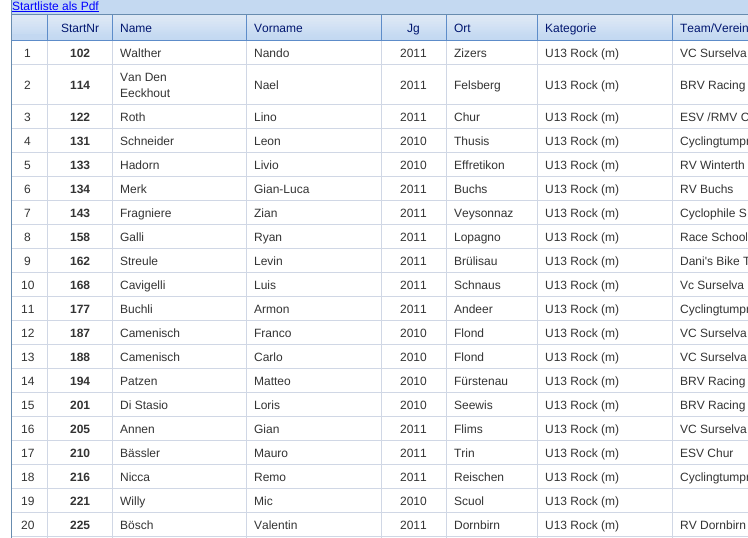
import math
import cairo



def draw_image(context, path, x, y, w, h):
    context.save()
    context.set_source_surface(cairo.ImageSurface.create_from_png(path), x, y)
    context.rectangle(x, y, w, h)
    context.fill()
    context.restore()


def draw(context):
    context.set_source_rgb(1, 1, 1)
    context.paint()
    context.rectangle(11.5, -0.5, 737, 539)
    context.set_source_rgb(104 / 255, 140 / 255, 175 / 255)
    context.set_line_width(1)
    context.stroke()
    context.set_source_rgb(196 / 255, 217 / 255, 241 / 255)
    context.rectangle(12, 0, 736, 14)
    context.fill()
    context.set_source_rgb(104 / 255, 140 / 255, 175 / 255)
    context.rectangle(12, 14, 736, 1)
    context.fill()
    context.set_source_rgb(0, 0, 1)
    context.rectangle(12, 11, 87, 1)
    context.fill()
    context.set_source_rgb(195 / 255, 216 / 255, 241 / 255)
    context.rectangle(12, 34, 35, 6)
    context.fill()
    draw_image(context, "images/1.png", 12, 15, 35, 19)
    context.set_source_rgb(93 / 255, 140 / 255, 201 / 255)
    context.rectangle(12, 40, 736, 1)
    context.fill()
    draw_image(context, "images/2.png", 48, 15, 64, 25)
    context.rectangle(47, 15, 1, 26)
    context.fill()
    draw_image(context, "images/3.png", 113, 15, 133, 25)
    context.rectangle(112, 15, 1, 26)
    context.fill()
    draw_image(context, "images/4.png", 247, 15, 134, 25)
    context.rectangle(246, 15, 1, 26)
    context.fill()
    draw_image(context, "images/2.png", 382, 15, 64, 25)
    context.rectangle(381, 15, 1, 26)
    context.fill()
    draw_image(context, "images/5.png", 447, 15, 90, 25)
    context.rectangle(446, 15, 1, 26)
    context.fill()
    draw_image(context, "images/4.png", 538, 15, 134, 25)
    context.rectangle(537, 15, 1, 26)
    context.fill()
    draw_image(context, "images/6.png", 673, 15, 75, 25)
    context.rectangle(672, 15, 1, 26)
    context.fill()
    context.set_source_rgb(208 / 255, 215 / 255, 229 / 255)
    context.rectangle(12, 64, 736, 1)
    context.fill()
    context.rectangle(47, 41, 1, 24)
    context.fill()
    context.rectangle(112, 41, 1, 24)
    context.fill()
    context.rectangle(246, 41, 1, 24)
    context.fill()
    context.rectangle(381, 41, 1, 24)
    context.fill()
    context.rectangle(446, 41, 1, 24)
    context.fill()
    context.rectangle(537, 41, 1, 24)
    context.fill()
    context.rectangle(672, 41, 1, 24)
    context.fill()
    context.rectangle(12, 104, 736, 1)
    context.fill()
    context.rectangle(47, 65, 1, 40)
    context.fill()
    context.rectangle(112, 65, 1, 40)
    context.fill()
    context.rectangle(246, 65, 1, 40)
    context.fill()
    context.rectangle(381, 65, 1, 40)
    context.fill()
    context.rectangle(446, 65, 1, 40)
    context.fill()
    context.rectangle(537, 65, 1, 40)
    context.fill()
    context.rectangle(672, 65, 1, 40)
    context.fill()
    context.rectangle(12, 128, 736, 1)
    context.fill()
    context.rectangle(47, 105, 1, 24)
    context.fill()
    context.rectangle(112, 105, 1, 24)
    context.fill()
    context.rectangle(246, 105, 1, 24)
    context.fill()
    context.rectangle(381, 105, 1, 24)
    context.fill()
    context.rectangle(446, 105, 1, 24)
    context.fill()
    context.rectangle(537, 105, 1, 24)
    context.fill()
    context.rectangle(672, 105, 1, 24)
    context.fill()
    context.rectangle(12, 152, 736, 1)
    context.fill()
    context.rectangle(47, 129, 1, 24)
    context.fill()
    context.rectangle(112, 129, 1, 24)
    context.fill()
    context.rectangle(246, 129, 1, 24)
    context.fill()
    context.rectangle(381, 129, 1, 24)
    context.fill()
    context.rectangle(446, 129, 1, 24)
    context.fill()
    context.rectangle(537, 129, 1, 24)
    context.fill()
    context.rectangle(672, 129, 1, 24)
    context.fill()
    context.rectangle(12, 176, 736, 1)
    context.fill()
    context.rectangle(47, 153, 1, 24)
    context.fill()
    context.rectangle(112, 153, 1, 24)
    context.fill()
    context.rectangle(246, 153, 1, 24)
    context.fill()
    context.rectangle(381, 153, 1, 24)
    context.fill()
    context.rectangle(446, 153, 1, 24)
    context.fill()
    context.rectangle(537, 153, 1, 24)
    context.fill()
    context.rectangle(672, 153, 1, 24)
    context.fill()
    context.rectangle(12, 200, 736, 1)
    context.fill()
    context.rectangle(47, 177, 1, 24)
    context.fill()
    context.rectangle(112, 177, 1, 24)
    context.fill()
    context.rectangle(246, 177, 1, 24)
    context.fill()
    context.rectangle(381, 177, 1, 24)
    context.fill()
    context.rectangle(446, 177, 1, 24)
    context.fill()
    context.rectangle(537, 177, 1, 24)
    context.fill()
    context.rectangle(672, 177, 1, 24)
    context.fill()
    context.rectangle(12, 224, 736, 1)
    context.fill()
    context.rectangle(47, 201, 1, 24)
    context.fill()
    context.rectangle(112, 201, 1, 24)
    context.fill()
    context.rectangle(246, 201, 1, 24)
    context.fill()
    context.rectangle(381, 201, 1, 24)
    context.fill()
    context.rectangle(446, 201, 1, 24)
    context.fill()
    context.rectangle(537, 201, 1, 24)
    context.fill()
    context.rectangle(672, 201, 1, 24)
    context.fill()
    context.rectangle(12, 248, 736, 1)
    context.fill()
    context.rectangle(47, 225, 1, 24)
    context.fill()
    context.rectangle(112, 225, 1, 24)
    context.fill()
    context.rectangle(246, 225, 1, 24)
    context.fill()
    context.rectangle(381, 225, 1, 24)
    context.fill()
    context.rectangle(446, 225, 1, 24)
    context.fill()
    context.rectangle(537, 225, 1, 24)
    context.fill()
    context.rectangle(672, 225, 1, 24)
    context.fill()
    context.rectangle(12, 272, 736, 1)
    context.fill()
    context.rectangle(47, 249, 1, 24)
    context.fill()
    context.rectangle(112, 249, 1, 24)
    context.fill()
    context.rectangle(246, 249, 1, 24)
    context.fill()
    context.rectangle(381, 249, 1, 24)
    context.fill()
    context.rectangle(446, 249, 1, 24)
    context.fill()
    context.rectangle(537, 249, 1, 24)
    context.fill()
    context.rectangle(672, 249, 1, 24)
    context.fill()
    context.rectangle(12, 296, 736, 1)
    context.fill()
    context.rectangle(47, 273, 1, 24)
    context.fill()
    context.rectangle(112, 273, 1, 24)
    context.fill()
    context.rectangle(246, 273, 1, 24)
    context.fill()
    context.rectangle(381, 273, 1, 24)
    context.fill()
    context.rectangle(446, 273, 1, 24)
    context.fill()
    context.rectangle(537, 273, 1, 24)
    context.fill()
    context.rectangle(672, 273, 1, 24)
    context.fill()
    context.rectangle(12, 320, 736, 1)
    context.fill()
    context.rectangle(47, 297, 1, 24)
    context.fill()
    context.rectangle(112, 297, 1, 24)
    context.fill()
    context.rectangle(246, 297, 1, 24)
    context.fill()
    context.rectangle(381, 297, 1, 24)
    context.fill()
    context.rectangle(446, 297, 1, 24)
    context.fill()
    context.rectangle(537, 297, 1, 24)
    context.fill()
    context.rectangle(672, 297, 1, 24)
    context.fill()
    context.rectangle(12, 344, 736, 1)
    context.fill()
    context.rectangle(47, 321, 1, 24)
    context.fill()
    context.rectangle(112, 321, 1, 24)
    context.fill()
    context.rectangle(246, 321, 1, 24)
    context.fill()
    context.rectangle(381, 321, 1, 24)
    context.fill()
    context.rectangle(446, 321, 1, 24)
    context.fill()
    context.rectangle(537, 321, 1, 24)
    context.fill()
    context.rectangle(672, 321, 1, 24)
    context.fill()
    context.rectangle(12, 368, 736, 1)
    context.fill()
    context.rectangle(47, 345, 1, 24)
    context.fill()
    context.rectangle(112, 345, 1, 24)
    context.fill()
    context.rectangle(246, 345, 1, 24)
    context.fill()
    context.rectangle(381, 345, 1, 24)
    context.fill()
    context.rectangle(446, 345, 1, 24)
    context.fill()
    context.rectangle(537, 345, 1, 24)
    context.fill()
    context.rectangle(672, 345, 1, 24)
    context.fill()
    context.rectangle(12, 392, 736, 1)
    context.fill()
    context.rectangle(47, 369, 1, 24)
    context.fill()
    context.rectangle(112, 369, 1, 24)
    context.fill()
    context.rectangle(246, 369, 1, 24)
    context.fill()
    context.rectangle(381, 369, 1, 24)
    context.fill()
    context.rectangle(446, 369, 1, 24)
    context.fill()
    context.rectangle(537, 369, 1, 24)
    context.fill()
    context.rectangle(672, 369, 1, 24)
    context.fill()
    context.rectangle(12, 416, 736, 1)
    context.fill()
    context.rectangle(47, 393, 1, 24)
    context.fill()
    context.rectangle(112, 393, 1, 24)
    context.fill()
    context.rectangle(246, 393, 1, 24)
    context.fill()
    context.rectangle(381, 393, 1, 24)
    context.fill()
    context.rectangle(446, 393, 1, 24)
    context.fill()
    context.rectangle(537, 393, 1, 24)
    context.fill()
    context.rectangle(672, 393, 1, 24)
    context.fill()
    context.rectangle(12, 440, 736, 1)
    context.fill()
    context.rectangle(47, 417, 1, 24)
    context.fill()
    context.rectangle(112, 417, 1, 24)
    context.fill()
    context.rectangle(246, 417, 1, 24)
    context.fill()
    context.rectangle(381, 417, 1, 24)
    context.fill()
    context.rectangle(446, 417, 1, 24)
    context.fill()
    context.rectangle(537, 417, 1, 24)
    context.fill()
    context.rectangle(672, 417, 1, 24)
    context.fill()
    context.rectangle(12, 464, 736, 1)
    context.fill()
    context.rectangle(47, 441, 1, 24)
    context.fill()
    context.rectangle(112, 441, 1, 24)
    context.fill()
    context.rectangle(246, 441, 1, 24)
    context.fill()
    context.rectangle(381, 441, 1, 24)
    context.fill()
    context.rectangle(446, 441, 1, 24)
    context.fill()
    context.rectangle(537, 441, 1, 24)
    context.fill()
    context.rectangle(672, 441, 1, 24)
    context.fill()
    context.rectangle(12, 488, 736, 1)
    context.fill()
    context.rectangle(47, 465, 1, 24)
    context.fill()
    context.rectangle(112, 465, 1, 24)
    context.fill()
    context.rectangle(246, 465, 1, 24)
    context.fill()
    context.rectangle(381, 465, 1, 24)
    context.fill()
    context.rectangle(446, 465, 1, 24)
    context.fill()
    context.rectangle(537, 465, 1, 24)
    context.fill()
    context.rectangle(672, 465, 1, 24)
    context.fill()
    context.rectangle(12, 512, 736, 1)
    context.fill()
    context.rectangle(47, 489, 1, 24)
    context.fill()
    context.rectangle(112, 489, 1, 24)
    context.fill()
    context.rectangle(246, 489, 1, 24)
    context.fill()
    context.rectangle(381, 489, 1, 24)
    context.fill()
    context.rectangle(446, 489, 1, 24)
    context.fill()
    context.rectangle(537, 489, 1, 24)
    context.fill()
    context.rectangle(672, 489, 1, 24)
    context.fill()
    context.rectangle(12, 536, 736, 1)
    context.fill()
    context.rectangle(47, 513, 1, 25)
    context.fill()
    context.rectangle(112, 513, 1, 25)
    context.fill()
    context.rectangle(246, 513, 1, 25)
    context.fill()
    context.rectangle(381, 513, 1, 25)
    context.fill()
    context.rectangle(446, 513, 1, 25)
    context.fill()
    context.rectangle(537, 513, 1, 25)
    context.fill()
    context.rectangle(672, 513, 1, 25)
    context.fill()
    context.select_font_face("Liberation Sans")
    context.set_font_size(12)
    context.set_source_rgb(0, 0, 1)
    context.move_to(12, 10)
    context.show_text("Startliste als Pdf")
    context.set_source_rgb(0, 21 / 255, 110 / 255)
    context.move_to(61, 32)
    context.show_text("StartNr")
    context.move_to(120, 32)
    context.show_text("Name")
    context.move_to(254, 32)
    context.show_text("Vorname")
    context.move_to(407, 32)
    context.show_text("Jg")
    context.move_to(454, 32)
    context.show_text("Ort")
    context.move_to(545, 32)
    context.show_text("Kategorie")
    context.move_to(680, 32)
    context.show_text("Team/Verein")
    context.set_source_rgb(51 / 255, 51 / 255, 51 / 255)
    context.move_to(24, 57)
    context.show_text("1")
    context.select_font_face("Liberation Sans", cairo.FontSlant.NORMAL, cairo.FontWeight.BOLD)
    context.move_to(70, 57)
    context.show_text("102")
    context.select_font_face("Liberation Sans")
    context.move_to(120, 57)
    context.show_text("Walther")
    context.move_to(254, 57)
    context.show_text("Nando")
    context.move_to(400, 57)
    context.show_text("2011")
    context.move_to(454, 57)
    context.show_text("Zizers")
    context.move_to(545, 57)
    context.show_text("U13 Rock (m)")
    context.move_to(680, 57)
    context.show_text("VC Surselva")
    context.move_to(24, 89)
    context.show_text("2")
    context.select_font_face("Liberation Sans", cairo.FontSlant.NORMAL, cairo.FontWeight.BOLD)
    context.move_to(70, 89)
    context.show_text("114")
    context.select_font_face("Liberation Sans")
    context.move_to(120, 81)
    context.show_text("Van Den")
    context.move_to(120, 97)
    context.show_text("Eeckhout")
    context.move_to(254, 89)
    context.show_text("Nael")
    context.move_to(400, 89)
    context.show_text("2011")
    context.move_to(454, 89)
    context.show_text("Felsberg")
    context.move_to(545, 89)
    context.show_text("U13 Rock (m)")
    context.move_to(680, 89)
    context.show_text("BRV Racing")
    context.move_to(24, 121)
    context.show_text("3")
    context.select_font_face("Liberation Sans", cairo.FontSlant.NORMAL, cairo.FontWeight.BOLD)
    context.move_to(70, 121)
    context.show_text("122")
    context.select_font_face("Liberation Sans")
    context.move_to(120, 121)
    context.show_text("Roth")
    context.move_to(254, 121)
    context.show_text("Lino")
    context.move_to(400, 121)
    context.show_text("2011")
    context.move_to(454, 121)
    context.show_text("Chur")
    context.move_to(545, 121)
    context.show_text("U13 Rock (m)")
    context.move_to(680, 121)
    context.show_text("ESV /RMV C")
    context.move_to(24, 145)
    context.show_text("4")
    context.select_font_face("Liberation Sans", cairo.FontSlant.NORMAL, cairo.FontWeight.BOLD)
    context.move_to(70, 145)
    context.show_text("131")
    context.select_font_face("Liberation Sans")
    context.move_to(120, 145)
    context.show_text("Schneider")
    context.move_to(254, 145)
    context.show_text("Leon")
    context.move_to(400, 145)
    context.show_text("2010")
    context.move_to(454, 145)
    context.show_text("Thusis")
    context.move_to(545, 145)
    context.show_text("U13 Rock (m)")
    context.move_to(680, 145)
    context.show_text("Cyclingtumpr")
    context.move_to(24, 169)
    context.show_text("5")
    context.select_font_face("Liberation Sans", cairo.FontSlant.NORMAL, cairo.FontWeight.BOLD)
    context.move_to(70, 169)
    context.show_text("133")
    context.select_font_face("Liberation Sans")
    context.move_to(120, 169)
    context.show_text("Hadorn")
    context.move_to(254, 169)
    context.show_text("Livio")
    context.move_to(400, 169)
    context.show_text("2010")
    context.move_to(454, 169)
    context.show_text("Effretikon")
    context.move_to(545, 169)
    context.show_text("U13 Rock (m)")
    context.move_to(680, 169)
    context.show_text("RV Winterth")
    context.move_to(24, 193)
    context.show_text("6")
    context.select_font_face("Liberation Sans", cairo.FontSlant.NORMAL, cairo.FontWeight.BOLD)
    context.move_to(70, 193)
    context.show_text("134")
    context.select_font_face("Liberation Sans")
    context.move_to(120, 193)
    context.show_text("Merk")
    context.move_to(254, 193)
    context.show_text("Gian-Luca")
    context.move_to(400, 193)
    context.show_text("2011")
    context.move_to(454, 193)
    context.show_text("Buchs")
    context.move_to(545, 193)
    context.show_text("U13 Rock (m)")
    context.move_to(680, 193)
    context.show_text("RV Buchs")
    context.move_to(24, 217)
    context.show_text("7")
    context.select_font_face("Liberation Sans", cairo.FontSlant.NORMAL, cairo.FontWeight.BOLD)
    context.move_to(70, 217)
    context.show_text("143")
    context.select_font_face("Liberation Sans")
    context.move_to(120, 217)
    context.show_text("Fragniere")
    context.move_to(254, 217)
    context.show_text("Zian")
    context.move_to(400, 217)
    context.show_text("2011")
    context.move_to(454, 217)
    context.show_text("Veysonnaz")
    context.move_to(545, 217)
    context.show_text("U13 Rock (m)")
    context.move_to(680, 217)
    context.show_text("Cyclophile S")
    context.move_to(24, 241)
    context.show_text("8")
    context.select_font_face("Liberation Sans", cairo.FontSlant.NORMAL, cairo.FontWeight.BOLD)
    context.move_to(70, 241)
    context.show_text("158")
    context.select_font_face("Liberation Sans")
    context.move_to(120, 241)
    context.show_text("Galli")
    context.move_to(254, 241)
    context.show_text("Ryan")
    context.move_to(400, 241)
    context.show_text("2011")
    context.move_to(454, 241)
    context.show_text("Lopagno")
    context.move_to(545, 241)
    context.show_text("U13 Rock (m)")
    context.move_to(680, 241)
    context.show_text("Race School")
    context.move_to(24, 265)
    context.show_text("9")
    context.select_font_face("Liberation Sans", cairo.FontSlant.NORMAL, cairo.FontWeight.BOLD)
    context.move_to(70, 265)
    context.show_text("162")
    context.select_font_face("Liberation Sans")
    context.move_to(120, 265)
    context.show_text("Streule")
    context.move_to(254, 265)
    context.show_text("Levin")
    context.move_to(400, 265)
    context.show_text("2011")
    context.move_to(454, 265)
    context.show_text("Brülisau")
    context.move_to(545, 265)
    context.show_text("U13 Rock (m)")
    context.move_to(680, 265)
    context.show_text("Dani's Bike T")
    context.move_to(21, 289)
    context.show_text("10")
    context.select_font_face("Liberation Sans", cairo.FontSlant.NORMAL, cairo.FontWeight.BOLD)
    context.move_to(70, 289)
    context.show_text("168")
    context.select_font_face("Liberation Sans")
    context.move_to(120, 289)
    context.show_text("Cavigelli")
    context.move_to(254, 289)
    context.show_text("Luis")
    context.move_to(400, 289)
    context.show_text("2011")
    context.move_to(454, 289)
    context.show_text("Schnaus")
    context.move_to(545, 289)
    context.show_text("U13 Rock (m)")
    context.move_to(680, 289)
    context.show_text("Vc Surselva")
    context.move_to(21, 313)
    context.show_text("11")
    context.select_font_face("Liberation Sans", cairo.FontSlant.NORMAL, cairo.FontWeight.BOLD)
    context.move_to(70, 313)
    context.show_text("177")
    context.select_font_face("Liberation Sans")
    context.move_to(120, 313)
    context.show_text("Buchli")
    context.move_to(254, 313)
    context.show_text("Armon")
    context.move_to(400, 313)
    context.show_text("2011")
    context.move_to(454, 313)
    context.show_text("Andeer")
    context.move_to(545, 313)
    context.show_text("U13 Rock (m)")
    context.move_to(680, 313)
    context.show_text("Cyclingtumpr")
    context.move_to(21, 337)
    context.show_text("12")
    context.select_font_face("Liberation Sans", cairo.FontSlant.NORMAL, cairo.FontWeight.BOLD)
    context.move_to(70, 337)
    context.show_text("187")
    context.select_font_face("Liberation Sans")
    context.move_to(120, 337)
    context.show_text("Camenisch")
    context.move_to(254, 337)
    context.show_text("Franco")
    context.move_to(400, 337)
    context.show_text("2010")
    context.move_to(454, 337)
    context.show_text("Flond")
    context.move_to(545, 337)
    context.show_text("U13 Rock (m)")
    context.move_to(680, 337)
    context.show_text("VC Surselva")
    context.move_to(21, 361)
    context.show_text("13")
    context.select_font_face("Liberation Sans", cairo.FontSlant.NORMAL, cairo.FontWeight.BOLD)
    context.move_to(70, 361)
    context.show_text("188")
    context.select_font_face("Liberation Sans")
    context.move_to(120, 361)
    context.show_text("Camenisch")
    context.move_to(254, 361)
    context.show_text("Carlo")
    context.move_to(400, 361)
    context.show_text("2010")
    context.move_to(454, 361)
    context.show_text("Flond")
    context.move_to(545, 361)
    context.show_text("U13 Rock (m)")
    context.move_to(680, 361)
    context.show_text("VC Surselva")
    context.move_to(21, 385)
    context.show_text("14")
    context.select_font_face("Liberation Sans", cairo.FontSlant.NORMAL, cairo.FontWeight.BOLD)
    context.move_to(70, 385)
    context.show_text("194")
    context.select_font_face("Liberation Sans")
    context.move_to(120, 385)
    context.show_text("Patzen")
    context.move_to(254, 385)
    context.show_text("Matteo")
    context.move_to(400, 385)
    context.show_text("2010")
    context.move_to(454, 385)
    context.show_text("Fürstenau")
    context.move_to(545, 385)
    context.show_text("U13 Rock (m)")
    context.move_to(680, 385)
    context.show_text("BRV Racing")
    context.move_to(21, 409)
    context.show_text("15")
    context.select_font_face("Liberation Sans", cairo.FontSlant.NORMAL, cairo.FontWeight.BOLD)
    context.move_to(70, 409)
    context.show_text("201")
    context.select_font_face("Liberation Sans")
    context.move_to(120, 409)
    context.show_text("Di Stasio")
    context.move_to(254, 409)
    context.show_text("Loris")
    context.move_to(400, 409)
    context.show_text("2010")
    context.move_to(454, 409)
    context.show_text("Seewis")
    context.move_to(545, 409)
    context.show_text("U13 Rock (m)")
    context.move_to(680, 409)
    context.show_text("BRV Racing")
    context.move_to(21, 433)
    context.show_text("16")
    context.select_font_face("Liberation Sans", cairo.FontSlant.NORMAL, cairo.FontWeight.BOLD)
    context.move_to(70, 433)
    context.show_text("205")
    context.select_font_face("Liberation Sans")
    context.move_to(120, 433)
    context.show_text("Annen")
    context.move_to(254, 433)
    context.show_text("Gian")
    context.move_to(400, 433)
    context.show_text("2011")
    context.move_to(454, 433)
    context.show_text("Flims")
    context.move_to(545, 433)
    context.show_text("U13 Rock (m)")
    context.move_to(680, 433)
    context.show_text("VC Surselva")
    context.move_to(21, 457)
    context.show_text("17")
    context.select_font_face("Liberation Sans", cairo.FontSlant.NORMAL, cairo.FontWeight.BOLD)
    context.move_to(70, 457)
    context.show_text("210")
    context.select_font_face("Liberation Sans")
    context.move_to(120, 457)
    context.show_text("Bässler")
    context.move_to(254, 457)
    context.show_text("Mauro")
    context.move_to(400, 457)
    context.show_text("2011")
    context.move_to(454, 457)
    context.show_text("Trin")
    context.move_to(545, 457)
    context.show_text("U13 Rock (m)")
    context.move_to(680, 457)
    context.show_text("ESV Chur")
    context.move_to(21, 481)
    context.show_text("18")
    context.select_font_face("Liberation Sans", cairo.FontSlant.NORMAL, cairo.FontWeight.BOLD)
    context.move_to(70, 481)
    context.show_text("216")
    context.select_font_face("Liberation Sans")
    context.move_to(120, 481)
    context.show_text("Nicca")
    context.move_to(254, 481)
    context.show_text("Remo")
    context.move_to(400, 481)
    context.show_text("2011")
    context.move_to(454, 481)
    context.show_text("Reischen")
    context.move_to(545, 481)
    context.show_text("U13 Rock (m)")
    context.move_to(680, 481)
    context.show_text("Cyclingtumpr")
    context.move_to(21, 505)
    context.show_text("19")
    context.select_font_face("Liberation Sans", cairo.FontSlant.NORMAL, cairo.FontWeight.BOLD)
    context.move_to(70, 505)
    context.show_text("221")
    context.select_font_face("Liberation Sans")
    context.move_to(120, 505)
    context.show_text("Willy")
    context.move_to(254, 505)
    context.show_text("Mic")
    context.move_to(400, 505)
    context.show_text("2010")
    context.move_to(454, 505)
    context.show_text("Scuol")
    context.move_to(545, 505)
    context.show_text("U13 Rock (m)")
    context.move_to(21, 529)
    context.show_text("20")
    context.select_font_face("Liberation Sans", cairo.FontSlant.NORMAL, cairo.FontWeight.BOLD)
    context.move_to(70, 529)
    context.show_text("225")
    context.select_font_face("Liberation Sans")
    context.move_to(120, 529)
    context.show_text("Bösch")
    context.move_to(254, 529)
    context.show_text("Valentin")
    context.move_to(400, 529)
    context.show_text("2011")
    context.move_to(454, 529)
    context.show_text("Dornbirn")
    context.move_to(545, 529)
    context.show_text("U13 Rock (m)")
    context.move_to(680, 529)
    context.show_text("RV Dornbirn")


surface = cairo.ImageSurface(cairo.Format.RGB24, 748, 538)
context = cairo.Context(surface)
options = cairo.FontOptions()
options.set_hint_metrics(cairo.HintMetrics.OFF)
options.set_hint_style(cairo.HintStyle.NONE)
context.set_font_options(options)
context.set_miter_limit(4)
draw(context)
surface.write_to_png("out.png")
